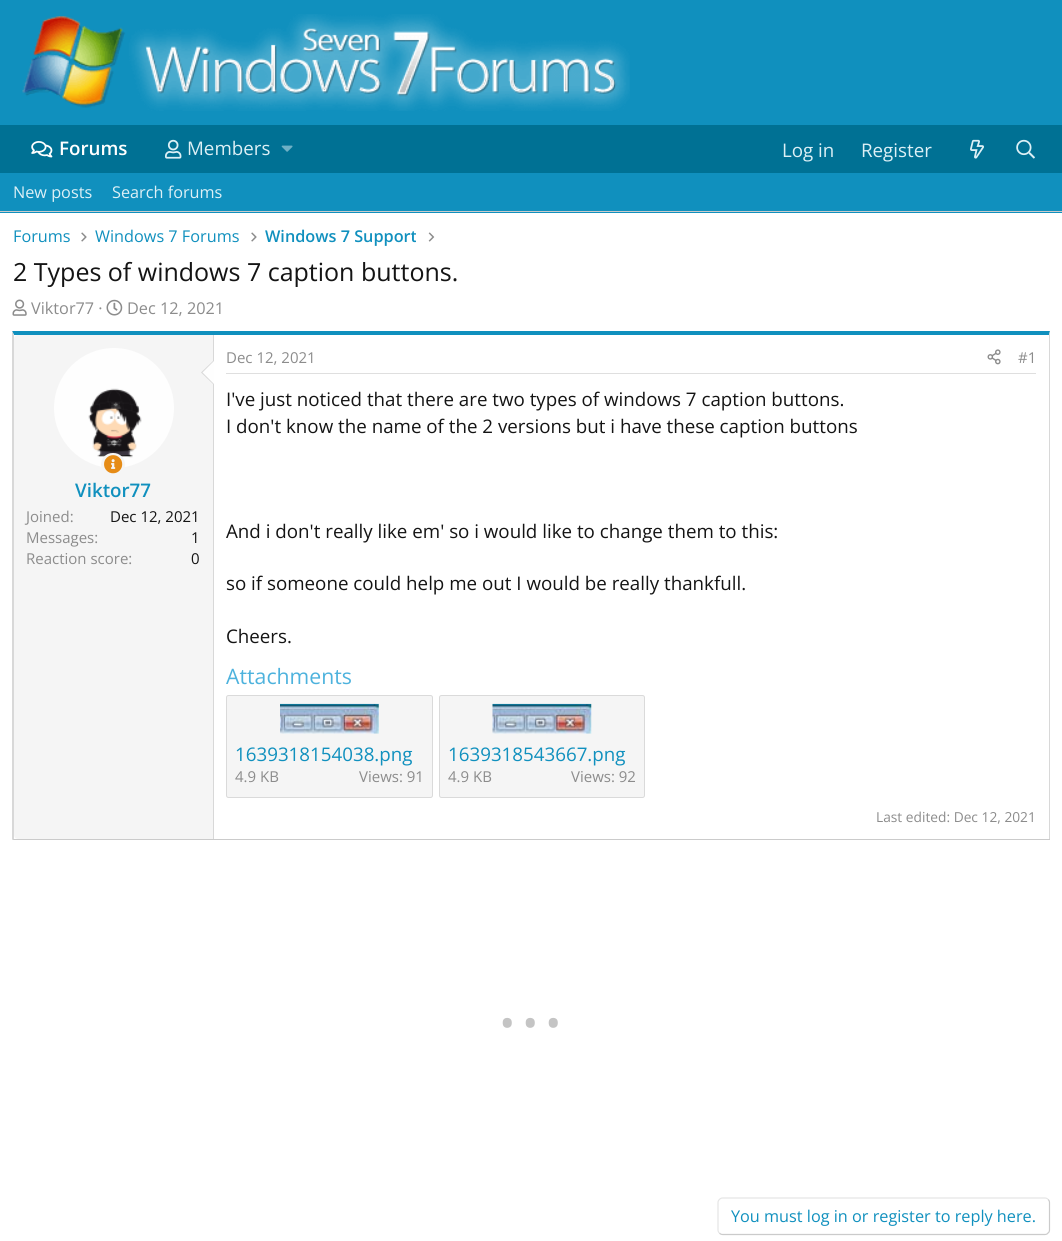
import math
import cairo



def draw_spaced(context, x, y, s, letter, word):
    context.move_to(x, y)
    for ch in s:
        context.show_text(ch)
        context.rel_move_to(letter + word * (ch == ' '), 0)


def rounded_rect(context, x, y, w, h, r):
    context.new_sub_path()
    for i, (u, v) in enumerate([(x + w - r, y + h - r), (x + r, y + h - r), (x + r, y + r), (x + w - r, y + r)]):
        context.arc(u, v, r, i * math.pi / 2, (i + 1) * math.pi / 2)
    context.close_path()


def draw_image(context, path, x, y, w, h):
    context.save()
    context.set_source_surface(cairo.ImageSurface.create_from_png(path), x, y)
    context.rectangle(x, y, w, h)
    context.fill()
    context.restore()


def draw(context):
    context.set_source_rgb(16 / 255, 144 / 255, 190 / 255)
    context.paint()
    draw_image(context, "images/1.png", 22, 14, 608, 97)
    context.set_source_rgb(0, 113 / 255, 148 / 255)
    context.rectangle(0, 125, 1062, 48)
    context.fill()
    draw_image(context, "images/2.png", 31, 141, 22, 17)
    draw_image(context, "images/3.png", 165, 139, 17, 20)
    draw_image(context, "images/4.png", 281, 145, 12, 7)
    draw_image(context, "images/5.png", 970, 139, 14, 20)
    draw_image(context, "images/6.png", 1016, 139, 19, 20)
    context.set_source_rgb(203 / 255, 203 / 255, 203 / 255)
    context.rectangle(0, 211, 1062, 1)
    context.fill()
    context.set_source_rgb(1, 1, 1)
    context.rectangle(0, 213, 1062, 1028)
    context.fill()
    draw_image(context, "images/7.png", 81, 232, 6, 10)
    draw_image(context, "images/7.png", 251, 232, 6, 10)
    draw_image(context, "images/8.png", 428, 232, 7, 10)
    draw_image(context, "images/9.png", 12, 299, 15, 17)
    draw_image(context, "images/10.png", 106, 299, 17, 17)
    context.set_source_rgb(16 / 255, 144 / 255, 190 / 255)
    context.new_path()
    context.move_to(12, 331)
    context.line_to(1050, 331)
    context.line_to(1049, 335)
    context.line_to(14, 335)
    context.close_path()
    context.fill()
    context.set_source_rgb(216 / 255, 216 / 255, 216 / 255)
    context.new_path()
    context.move_to(1050, 331)
    context.line_to(1050, 840)
    context.line_to(1049, 839)
    context.line_to(1049, 335)
    context.close_path()
    context.fill()
    context.set_source_rgb(203 / 255, 203 / 255, 203 / 255)
    context.rectangle(13, 839, 1037, 1)
    context.fill()
    context.set_source_rgb(216 / 255, 216 / 255, 216 / 255)
    context.new_path()
    context.move_to(12, 840)
    context.line_to(12, 331)
    context.line_to(14, 335)
    context.line_to(14, 839)
    context.close_path()
    context.fill()
    context.set_source_rgb(245 / 255, 245 / 255, 245 / 255)
    context.new_path()
    context.move_to(18, 335)
    context.line_to(214, 335)
    context.line_to(214, 839)
    context.line_to(18, 839)
    context.curve_to(16, 839, 14, 837, 14, 835)
    context.line_to(14, 339)
    context.curve_to(14, 337, 16, 335, 18, 335)
    context.close_path()
    context.fill()
    context.set_source_rgb(216 / 255, 216 / 255, 216 / 255)
    context.rectangle(213, 335, 1, 504)
    context.fill()
    context.set_source_rgb(254 / 255, 254 / 255, 254 / 255)
    context.arc(114, 408, 60, 0, 2 * math.pi)
    context.fill()
    draw_image(context, "images/11.png", 88, 388, 54, 70)
    context.set_source_rgb(245 / 255, 245 / 255, 245 / 255)
    rounded_rect(context, 102.5, 454.5, 21, 20, 10)
    context.fill_preserve()
    context.set_line_width(3)
    context.stroke()
    draw_image(context, "images/12.png", 104, 455, 19, 19)
    context.set_source_rgb(216 / 255, 216 / 255, 216 / 255)
    context.new_path()
    context.move_to(214, 360)
    context.line_to(214, 385)
    context.line_to(201, 372.5)
    context.close_path()
    context.fill()
    context.set_source_rgb(254 / 255, 254 / 255, 254 / 255)
    context.new_path()
    context.move_to(214, 361)
    context.line_to(214, 384)
    context.line_to(202.5, 372.5)
    context.close_path()
    context.fill()
    context.set_source_rgb(223 / 255, 223 / 255, 223 / 255)
    context.rectangle(226, 373, 810, 1)
    context.fill()
    draw_image(context, "images/13.png", 987, 349, 14, 16)
    context.set_source_rgb(245 / 255, 245 / 255, 245 / 255)
    rounded_rect(context, 226.5, 695.5, 206, 102, 2)
    context.fill_preserve()
    context.set_source_rgb(218 / 255, 218 / 255, 218 / 255)
    context.set_line_width(1)
    context.stroke()
    draw_image(context, "images/14.png", 280, 703, 99, 31)
    context.set_source_rgb(245 / 255, 245 / 255, 245 / 255)
    rounded_rect(context, 439.5, 695.5, 205, 102, 2)
    context.fill_preserve()
    context.set_source_rgb(218 / 255, 218 / 255, 218 / 255)
    context.stroke()
    draw_image(context, "images/15.png", 492, 703, 100, 31)
    context.new_path()
    context.move_to(1048, 1199.5)
    context.curve_to(1049, 1200, 1049.5, 1201.5, 1049.5, 1202.5)
    context.line_to(1049.5, 1230)
    context.curve_to(1049.5, 1231, 1049, 1232.5, 1048, 1233)
    context.curve_to(1047.5, 1234, 1046, 1234.5, 1045, 1234.5)
    context.line_to(722.5, 1234.5)
    context.curve_to(721.5, 1234.5, 720, 1234, 719.5, 1233)
    context.set_source_rgb(203 / 255, 203 / 255, 203 / 255)
    context.set_line_width(1.2)
    context.stroke()
    context.new_path()
    context.move_to(719.5, 1233)
    context.curve_to(718.5, 1232.5, 718, 1231, 718, 1230)
    context.line_to(718, 1202.5)
    context.curve_to(718, 1201.5, 718.5, 1200, 719.5, 1199.5)
    context.curve_to(720, 1198.5, 721.5, 1198, 722.5, 1198)
    context.line_to(1045, 1198)
    context.curve_to(1046, 1198, 1047.5, 1198.5, 1048, 1199.5)
    context.set_source_rgb(229 / 255, 229 / 255, 229 / 255)
    context.stroke()
    context.select_font_face("Open Sans SemiBold")
    context.set_font_size(18.75)
    context.set_source_rgb(1, 1, 1)
    context.move_to(59, 155)
    context.show_text("Forums")
    context.select_font_face("Open Sans")
    context.set_source_rgb(221 / 255, 240 / 255, 246 / 255)
    context.move_to(187, 155)
    context.show_text("Members")
    context.move_to(782, 157)
    context.show_text("Log in")
    context.move_to(861, 157)
    context.show_text("Register")
    context.set_font_size(16.25)
    context.move_to(13, 198)
    context.show_text("New posts")
    context.move_to(112, 198)
    context.show_text("Search forums")
    context.set_source_rgb(16 / 255, 144 / 255, 190 / 255)
    context.move_to(13, 242)
    context.show_text("Forums")
    context.move_to(95, 242)
    context.show_text("Windows 7 Forums")
    context.save()
    context.rectangle(265, 225, 151, 24)
    context.clip()
    context.select_font_face("Open Sans SemiBold")
    context.move_to(265, 242)
    context.show_text("Windows 7 Support")
    context.restore()
    context.set_font_size(25)
    context.set_source_rgb(20 / 255, 20 / 255, 20 / 255)
    context.move_to(13, 281)
    context.show_text("2 Types of windows 7 caption buttons.")
    context.set_font_size(16.25)
    context.set_source_rgb(140 / 255, 140 / 255, 140 / 255)
    context.move_to(31, 314)
    context.show_text("Viktor77 ·")
    context.move_to(127, 314)
    context.show_text("Dec 12, 2021")
    context.select_font_face("Open Sans SemiBold")
    context.set_font_size(18.75)
    context.set_source_rgb(16 / 255, 144 / 255, 190 / 255)
    context.move_to(75, 497)
    context.show_text("Viktor77")
    context.select_font_face("Open Sans")
    context.set_font_size(15)
    context.set_source_rgb(140 / 255, 140 / 255, 140 / 255)
    context.move_to(26, 522)
    context.show_text("Joined:")
    context.set_source_rgb(20 / 255, 20 / 255, 20 / 255)
    context.move_to(110, 522)
    context.show_text("Dec 12, 2021")
    context.set_source_rgb(140 / 255, 140 / 255, 140 / 255)
    context.move_to(26, 543)
    context.show_text("Messages:")
    context.set_source_rgb(20 / 255, 20 / 255, 20 / 255)
    context.move_to(191, 543)
    context.show_text("1")
    context.set_source_rgb(140 / 255, 140 / 255, 140 / 255)
    context.move_to(26, 564)
    context.show_text("Reaction score:")
    context.set_source_rgb(20 / 255, 20 / 255, 20 / 255)
    context.move_to(191, 564)
    context.show_text("0")
    context.set_source_rgb(140 / 255, 140 / 255, 140 / 255)
    context.move_to(226, 363)
    context.show_text("Dec 12, 2021")
    context.move_to(1018, 363)
    context.show_text("#1")
    context.set_font_size(18.75)
    context.set_source_rgb(20 / 255, 20 / 255, 20 / 255)
    context.move_to(226, 406)
    context.show_text("I've just noticed that there are two types of windows 7 caption buttons.")
    context.move_to(226, 433)
    context.show_text("I don't know the name of the 2 versions but i have these caption buttons")
    context.move_to(226, 538)
    context.show_text("And i don't really like em' so i would like to change them to this:")
    context.move_to(226, 590)
    context.show_text("so if someone could help me out I would be really thankfull.")
    context.move_to(226, 643)
    context.show_text("Cheers.")
    context.set_font_size(21.25)
    context.set_source_rgb(77 / 255, 178 / 255, 221 / 255)
    context.move_to(226, 684)
    context.show_text("Attachments")
    context.set_font_size(18.75)
    context.set_source_rgb(16 / 255, 144 / 255, 190 / 255)
    context.move_to(235, 761)
    context.show_text("1639318154038.png")
    context.set_font_size(15)
    context.set_source_rgb(140 / 255, 140 / 255, 140 / 255)
    context.move_to(235, 782)
    context.show_text("4.9 KB")
    context.move_to(359, 782)
    context.show_text("Views: 91")
    context.set_font_size(18.75)
    context.set_source_rgb(16 / 255, 144 / 255, 190 / 255)
    context.move_to(448, 761)
    context.show_text("1639318543667.png")
    context.set_font_size(15)
    context.set_source_rgb(140 / 255, 140 / 255, 140 / 255)
    context.move_to(448, 782)
    context.show_text("4.9 KB")
    context.move_to(571, 782)
    context.show_text("Views: 92")
    context.set_font_size(13.75)
    context.move_to(876, 822)
    context.show_text("Last edited: Dec 12, 2021")
    context.set_font_size(78)
    context.set_source_rgb(196 / 255, 196 / 255, 196 / 255)
    draw_spaced(context, 497, 1050, "···", 2.5, 0)
    context.set_font_size(16.25)
    context.set_source_rgb(16 / 255, 144 / 255, 190 / 255)
    context.move_to(731, 1222)
    context.show_text("You must log in or register to reply here.")


surface = cairo.ImageSurface(cairo.Format.RGB24, 1062, 1241)
context = cairo.Context(surface)
options = cairo.FontOptions()
options.set_hint_metrics(cairo.HintMetrics.OFF)
options.set_hint_style(cairo.HintStyle.NONE)
context.set_font_options(options)
context.set_miter_limit(4)
draw(context)
surface.write_to_png("out.png")
